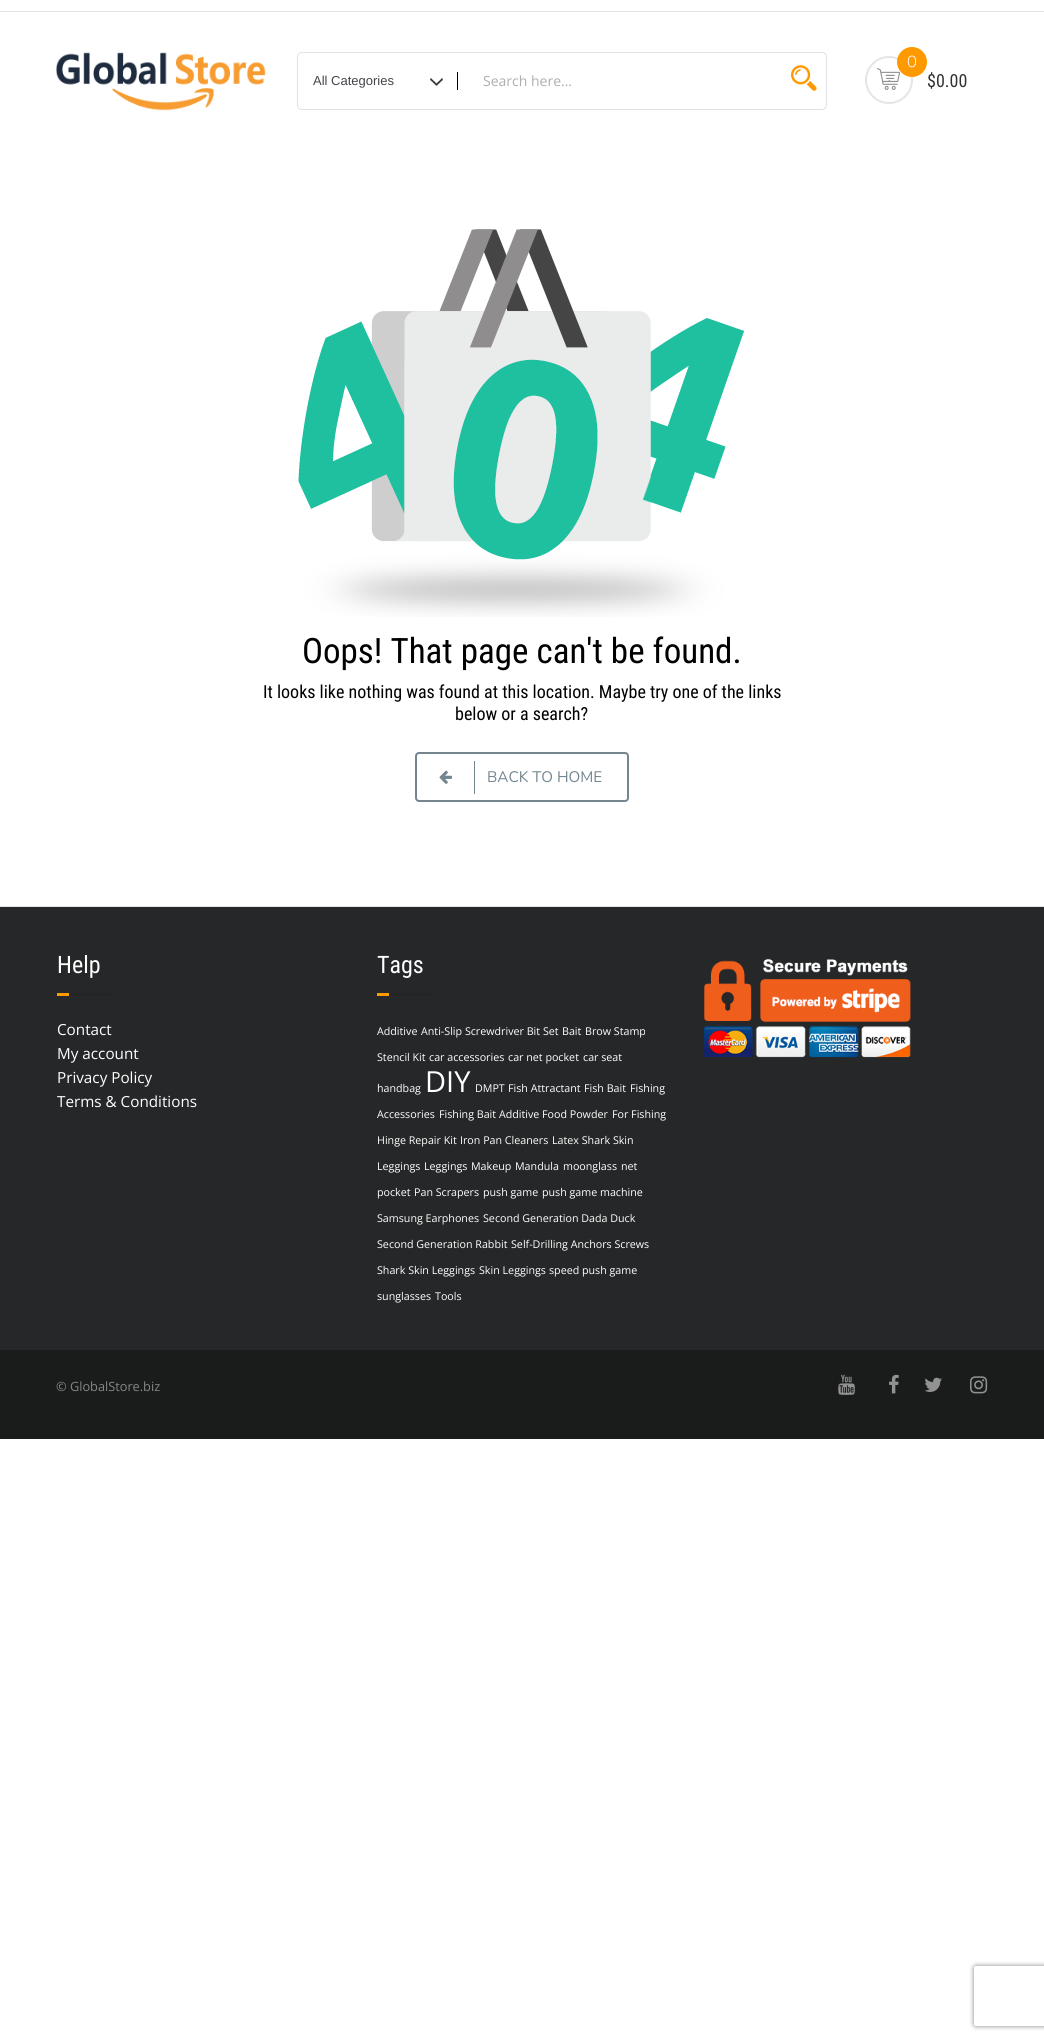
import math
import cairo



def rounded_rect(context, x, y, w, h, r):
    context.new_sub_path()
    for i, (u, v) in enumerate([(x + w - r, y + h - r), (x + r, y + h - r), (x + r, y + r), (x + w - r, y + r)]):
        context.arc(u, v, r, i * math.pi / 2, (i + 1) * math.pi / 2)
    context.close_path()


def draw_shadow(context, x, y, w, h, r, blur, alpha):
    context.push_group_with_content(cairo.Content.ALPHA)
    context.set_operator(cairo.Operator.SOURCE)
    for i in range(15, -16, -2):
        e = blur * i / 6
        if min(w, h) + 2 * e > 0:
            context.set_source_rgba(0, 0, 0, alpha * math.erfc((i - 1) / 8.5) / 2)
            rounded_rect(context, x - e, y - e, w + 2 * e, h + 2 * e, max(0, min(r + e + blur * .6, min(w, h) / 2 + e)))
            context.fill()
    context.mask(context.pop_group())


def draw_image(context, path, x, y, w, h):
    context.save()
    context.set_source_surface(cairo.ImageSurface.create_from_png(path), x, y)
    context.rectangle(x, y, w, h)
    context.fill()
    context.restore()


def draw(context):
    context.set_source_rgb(1, 1, 1)
    context.paint()
    context.set_source_rgb(229 / 255, 229 / 255, 229 / 255)
    context.rectangle(0, 11, 1044, 1)
    context.fill()
    draw_image(context, "images/1.png", 56, 52, 210, 59)
    rounded_rect(context, 297.5, 52.5, 529, 57, 4.5)
    context.set_source_rgb(226 / 255, 225 / 255, 230 / 255)
    context.set_line_width(1)
    context.stroke()
    draw_image(context, "images/2.png", 430, 78, 13, 8)
    context.set_source_rgb(0, 0, 0)
    context.rectangle(457, 72, 1, 18)
    context.fill()
    draw_image(context, "images/3.png", 791, 65, 26, 26)
    context.arc(889, 80, 23, 0, 2 * math.pi)
    context.set_source_rgb(229 / 255, 229 / 255, 229 / 255)
    context.set_line_width(2)
    context.stroke()
    draw_image(context, "images/6.png", 888, 80, 2, 1)
    draw_image(context, "images/4.png", 877, 68, 23, 22)
    context.set_source_rgb(1, 153 / 255, 0)
    context.arc(912, 62, 15, 0, 2 * math.pi)
    context.fill()
    draw_image(context, "images/5.png", 907, 55, 9, 13)
    draw_image(context, "images/7.png", 298, 229, 446, 388)
    rounded_rect(context, 416, 753, 212, 48, 3)
    context.set_source_rgb(116 / 255, 133 / 255, 144 / 255)
    context.stroke()
    context.rectangle(474, 761, 1, 33)
    context.fill()
    draw_image(context, "images/8.png", 439, 770, 13, 14)
    context.set_source_rgb(38 / 255, 39 / 255, 40 / 255)
    context.rectangle(0, 907, 1044, 443)
    context.fill()
    context.set_source_rgb(229 / 255, 229 / 255, 229 / 255)
    context.rectangle(0, 906, 1044, 1)
    context.fill()
    context.set_source_rgb(1, 153 / 255, 0)
    context.rectangle(57, 993, 12, 3)
    context.fill()
    context.set_source_rgb(34 / 255, 35 / 255, 36 / 255)
    context.rectangle(69, 994, 46, 1)
    context.fill()
    context.set_source_rgb(1, 153 / 255, 0)
    context.rectangle(377, 993, 12, 3)
    context.fill()
    context.set_source_rgb(34 / 255, 35 / 255, 36 / 255)
    context.rectangle(389, 994, 46, 1)
    context.fill()
    draw_image(context, "images/9.png", 703, 959, 208, 99)
    context.set_source_rgb(26 / 255, 27 / 255, 27 / 255)
    context.rectangle(0, 1350, 1044, 89)
    context.fill()
    draw_image(context, "images/10.png", 838, 1374, 17, 21)
    draw_image(context, "images/11.png", 889, 1374, 10, 20)
    draw_image(context, "images/12.png", 924, 1377, 18, 15)
    draw_image(context, "images/13.png", 970, 1376, 18, 18)
    context.save()
    context.set_fill_rule(cairo.FillRule.EVEN_ODD)
    context.new_path()
    context.move_to(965, 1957)
    context.line_to(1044, 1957)
    context.line_to(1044, 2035)
    context.line_to(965, 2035)
    context.close_path()
    context.move_to(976, 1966)
    context.line_to(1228, 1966)
    context.curve_to(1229, 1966, 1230, 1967, 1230, 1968)
    context.line_to(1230, 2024)
    context.curve_to(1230, 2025, 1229, 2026, 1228, 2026)
    context.line_to(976, 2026)
    context.curve_to(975, 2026, 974, 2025, 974, 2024)
    context.line_to(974, 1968)
    context.curve_to(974, 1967, 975, 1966, 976, 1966)
    context.close_path()
    context.clip()
    context.set_source_rgb(128 / 255, 128 / 255, 128 / 255)
    draw_shadow(context, 974, 1966, 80, 60, 2, 2.5, 1)
    context.restore()
    context.select_font_face("Liberation Sans")
    context.set_font_size(13)
    context.set_source_rgb(67 / 255, 69 / 255, 75 / 255)
    context.move_to(313, 85)
    context.show_text("All Categories")
    context.select_font_face("Open Sans")
    context.set_font_size(14)
    context.set_source_rgb(174 / 255, 174 / 255, 174 / 255)
    context.move_to(483, 86)
    context.show_text("Search here...")
    context.select_font_face("Roboto Condensed")
    context.set_font_size(18)
    context.set_source_rgb(51 / 255, 51 / 255, 51 / 255)
    context.move_to(927, 87)
    context.show_text("$0.00")
    context.set_font_size(35)
    context.set_source_rgb(0, 0, 0)
    context.move_to(302, 663)
    context.show_text("Oops! That page can't be found.")
    context.set_font_size(18)
    context.move_to(263, 698)
    context.show_text("It looks like nothing was found at this location. Maybe try one of the links")
    context.move_to(455, 720)
    context.show_text("below or a search?")
    context.select_font_face("Nunito")
    context.set_font_size(15.25)
    context.set_source_rgb(116 / 255, 133 / 255, 144 / 255)
    context.move_to(487, 782)
    context.show_text("BACK TO HOME")
    context.select_font_face("Roboto Condensed")
    context.set_font_size(24)
    context.set_source_rgb(1, 1, 1)
    context.move_to(57, 973)
    context.show_text("Help")
    context.select_font_face("Open Sans")
    context.set_font_size(15.25)
    context.move_to(57, 1035)
    context.show_text("Contact")
    context.move_to(57, 1059)
    context.show_text("My account")
    context.move_to(57, 1083)
    context.show_text("Privacy Policy")
    context.move_to(57, 1107)
    context.show_text("Terms & Conditions")
    context.select_font_face("Roboto Condensed")
    context.set_font_size(24)
    context.move_to(377, 973)
    context.show_text("Tags")
    context.select_font_face("Open Sans")
    context.set_font_size(10.7)
    context.move_to(377, 1035)
    context.show_text("Additive")
    context.move_to(421, 1035)
    context.show_text("Anti-Slip Screwdriver Bit Set")
    context.move_to(562, 1035)
    context.show_text("Bait")
    context.move_to(585, 1035)
    context.show_text("Brow Stamp")
    context.move_to(377, 1061)
    context.show_text("Stencil Kit")
    context.move_to(429, 1061)
    context.show_text("car accessories")
    context.move_to(508, 1061)
    context.show_text("car net pocket")
    context.move_to(583, 1061)
    context.show_text("car seat")
    context.move_to(377, 1092)
    context.show_text("handbag")
    context.set_font_size(29)
    context.move_to(425, 1092)
    context.show_text("DIY")
    context.set_font_size(10.7)
    context.move_to(475, 1092)
    context.show_text("DMPT")
    context.move_to(508, 1092)
    context.show_text("Fish Attractant")
    context.move_to(584, 1092)
    context.show_text("Fish Bait")
    context.move_to(630, 1092)
    context.show_text("Fishing")
    context.move_to(377, 1118)
    context.show_text("Accessories")
    context.move_to(439, 1118)
    context.show_text("Fishing Bait Additive")
    context.move_to(542, 1118)
    context.show_text("Food Powder")
    context.move_to(612, 1118)
    context.show_text("For Fishing")
    context.move_to(377, 1144)
    context.show_text("Hinge Repair Kit")
    context.move_to(460, 1144)
    context.show_text("Iron Pan Cleaners")
    context.move_to(552, 1144)
    context.show_text("Latex Shark Skin")
    context.move_to(377, 1170)
    context.show_text("Leggings")
    context.move_to(424, 1170)
    context.show_text("Leggings")
    context.move_to(471, 1170)
    context.show_text("Makeup")
    context.move_to(515, 1170)
    context.show_text("Mandula")
    context.move_to(563, 1170)
    context.show_text("moonglass")
    context.move_to(621, 1170)
    context.show_text("net")
    context.move_to(377, 1196)
    context.show_text("pocket")
    context.move_to(414, 1196)
    context.show_text("Pan Scrapers")
    context.move_to(483, 1196)
    context.show_text("push game")
    context.move_to(542, 1196)
    context.show_text("push game machine")
    context.move_to(377, 1222)
    context.show_text("Samsung Earphones")
    context.move_to(483, 1222)
    context.show_text("Second Generation Dada Duck")
    context.move_to(377, 1248)
    context.show_text("Second Generation Rabbit")
    context.move_to(511, 1248)
    context.show_text("Self-Drilling Anchors Screws")
    context.move_to(377, 1274)
    context.show_text("Shark Skin Leggings")
    context.move_to(479, 1274)
    context.show_text("Skin Leggings")
    context.move_to(549, 1274)
    context.show_text("speed push game")
    context.move_to(377, 1300)
    context.show_text("sunglasses")
    context.move_to(435, 1300)
    context.show_text("Tools")
    context.set_font_size(12.75)
    context.set_source_rgb(134 / 255, 134 / 255, 134 / 255)
    context.move_to(56, 1391)
    context.show_text("© GlobalStore.biz")


surface = cairo.ImageSurface(cairo.Format.RGB24, 1044, 2040)
context = cairo.Context(surface)
options = cairo.FontOptions()
options.set_hint_metrics(cairo.HintMetrics.OFF)
options.set_hint_style(cairo.HintStyle.NONE)
context.set_font_options(options)
context.set_miter_limit(4)
draw(context)
surface.write_to_png("out.png")
